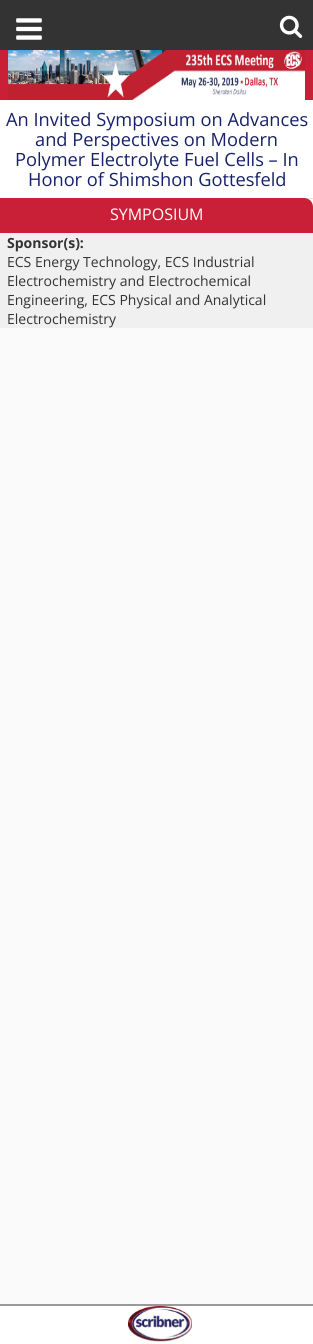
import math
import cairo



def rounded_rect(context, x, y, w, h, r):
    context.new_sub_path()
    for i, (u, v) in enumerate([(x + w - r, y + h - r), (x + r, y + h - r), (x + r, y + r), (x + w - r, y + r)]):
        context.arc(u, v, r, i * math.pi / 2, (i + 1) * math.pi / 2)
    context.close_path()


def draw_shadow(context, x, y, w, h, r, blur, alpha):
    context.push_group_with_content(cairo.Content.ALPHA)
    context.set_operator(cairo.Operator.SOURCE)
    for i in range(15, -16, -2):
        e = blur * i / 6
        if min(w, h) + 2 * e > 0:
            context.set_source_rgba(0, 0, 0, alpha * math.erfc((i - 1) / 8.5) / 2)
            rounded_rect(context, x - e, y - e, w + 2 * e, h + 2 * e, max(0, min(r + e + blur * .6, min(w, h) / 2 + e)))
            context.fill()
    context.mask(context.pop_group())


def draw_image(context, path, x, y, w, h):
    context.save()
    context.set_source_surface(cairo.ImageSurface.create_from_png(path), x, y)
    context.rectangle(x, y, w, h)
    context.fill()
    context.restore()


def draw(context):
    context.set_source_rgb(250 / 255, 250 / 255, 250 / 255)
    context.paint()
    context.set_source_rgb(51 / 255, 51 / 255, 51 / 255)
    context.rectangle(0, 0, 313, 50)
    context.fill()
    draw_image(context, "images/1.png", 279, 15, 24, 23)
    context.set_source_rgb(201 / 255, 32 / 255, 55 / 255)
    context.rectangle(0, 50, 313, 50)
    context.fill()
    draw_image(context, "images/2.png", 8, 50, 297, 50)
    draw_image(context, "images/3.png", 16, 18, 26, 22)
    context.set_source_rgb(1, 1, 1)
    context.rectangle(304, 198, 9, 9)
    context.fill()
    context.set_source_rgb(0, 0, 0)
    draw_shadow(context, 1, 101, 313, 98, 0, 0.5, 0.1)
    context.set_source_rgb(1, 1, 1)
    context.rectangle(0, 100, 313, 98)
    context.fill()
    context.set_source_rgb(201 / 255, 32 / 255, 55 / 255)
    context.rectangle(0, 230, 313, 3)
    context.fill()
    context.new_path()
    context.move_to(0, 198)
    context.line_to(304, 198)
    context.curve_to(309, 198, 313, 202, 313, 207)
    context.line_to(313, 230)
    context.line_to(0, 230)
    context.close_path()
    context.fill()
    context.set_source_rgb(240 / 255, 240 / 255, 240 / 255)
    context.rectangle(0, 233, 313, 95)
    context.fill()
    context.set_source_rgb(1, 1, 1)
    context.rectangle(0, 1306, 313, 38)
    context.fill()
    context.set_source_rgb(153 / 255, 153 / 255, 153 / 255)
    context.rectangle(0, 1304, 313, 2)
    context.fill()
    draw_image(context, "images/4.png", 128, 1306, 64, 36)
    context.select_font_face("Open Sans")
    context.set_font_size(18.25)
    context.set_source_rgb(22 / 255, 33 / 255, 106 / 255)
    context.move_to(6, 126)
    context.show_text("An Invited Symposium on Advances")
    context.move_to(35, 146)
    context.show_text("and Perspectives on Modern")
    context.move_to(15, 166)
    context.show_text("Polymer Electrolyte Fuel Cells – In")
    context.move_to(28, 186)
    context.show_text("Honor of Shimshon Gottesfeld")
    context.set_font_size(16)
    context.set_source_rgb(1, 1, 1)
    context.move_to(110, 220)
    context.show_text("SYMPOSIUM")
    context.select_font_face("Open Sans", cairo.FontSlant.NORMAL, cairo.FontWeight.BOLD)
    context.set_font_size(14)
    context.set_source_rgb(51 / 255, 51 / 255, 51 / 255)
    context.move_to(7, 248)
    context.show_text("Sponsor(s):")
    context.select_font_face("Open Sans")
    context.move_to(7, 267)
    context.show_text("ECS Energy Technology, ECS Industrial")
    context.move_to(7, 286)
    context.show_text("Electrochemistry and Electrochemical")
    context.move_to(7, 305)
    context.show_text("Engineering, ECS Physical and Analytical")
    context.move_to(7, 324)
    context.show_text("Electrochemistry")


surface = cairo.ImageSurface(cairo.Format.RGB24, 313, 1344)
context = cairo.Context(surface)
options = cairo.FontOptions()
options.set_hint_metrics(cairo.HintMetrics.OFF)
options.set_hint_style(cairo.HintStyle.NONE)
context.set_font_options(options)
context.set_miter_limit(4)
draw(context)
surface.write_to_png("out.png")
